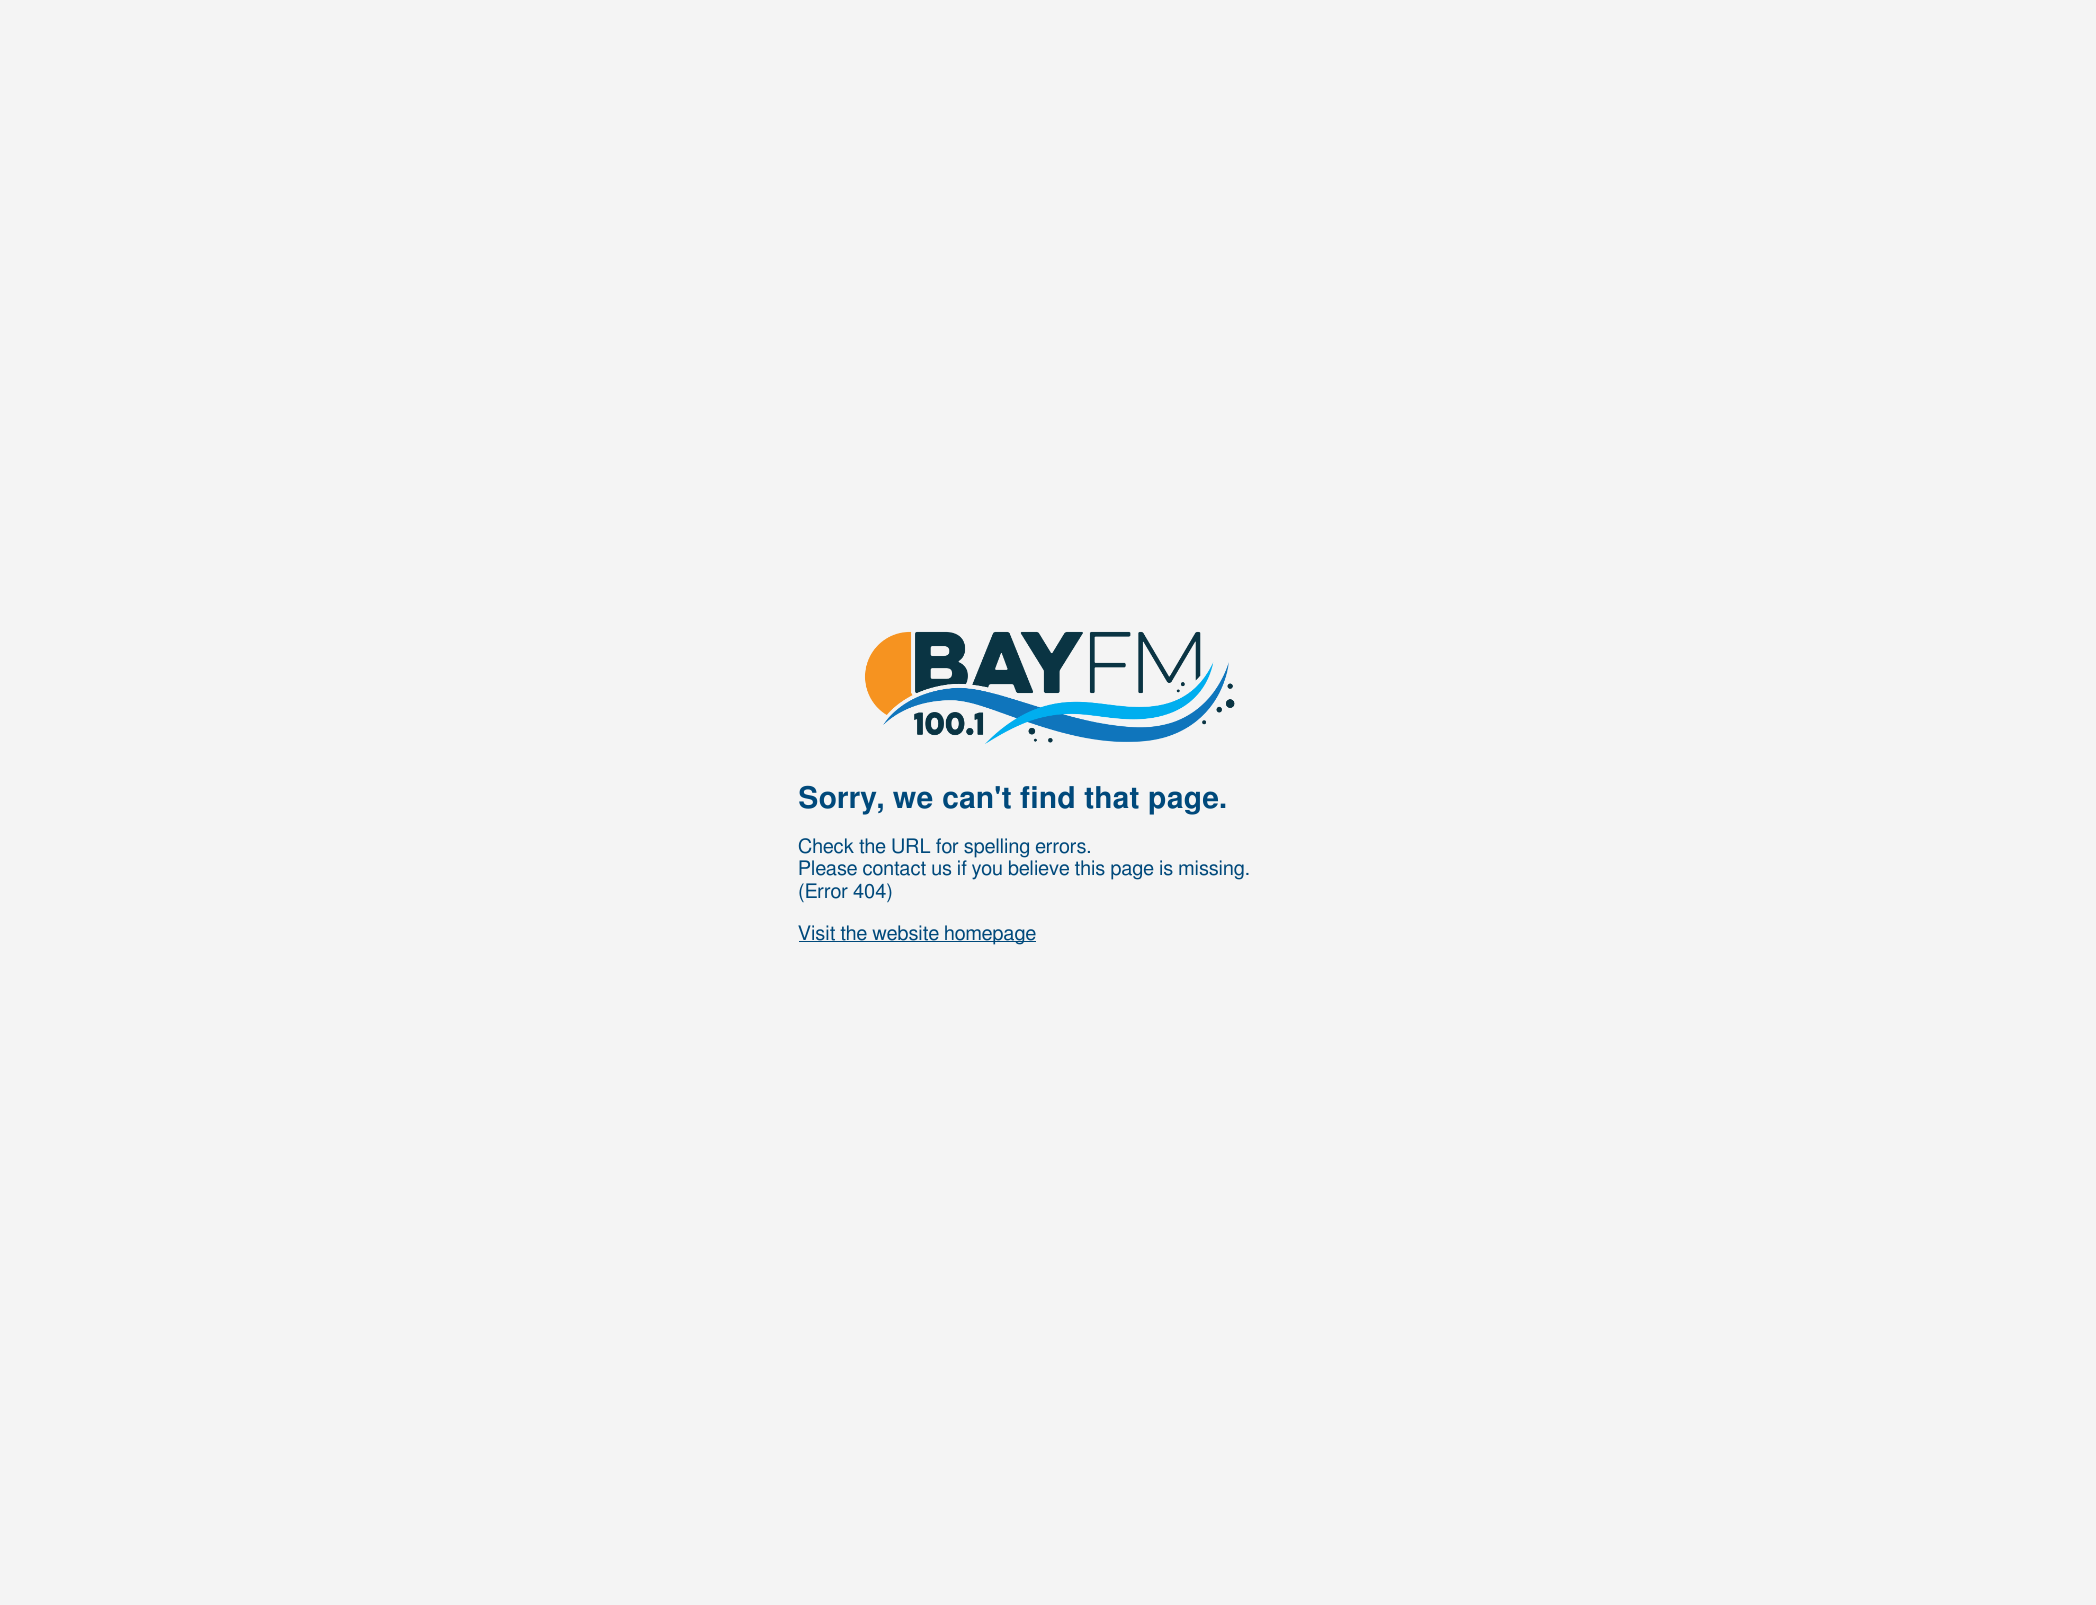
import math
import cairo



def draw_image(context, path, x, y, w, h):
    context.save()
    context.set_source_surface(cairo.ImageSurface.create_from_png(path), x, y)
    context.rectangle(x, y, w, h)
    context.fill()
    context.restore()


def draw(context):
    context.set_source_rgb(244 / 255, 244 / 255, 244 / 255)
    context.paint()
    draw_image(context, "images/1.png", 864, 631, 371, 113)
    context.set_source_rgb(0, 73 / 255, 123 / 255)
    context.rectangle(799, 941, 237, 1)
    context.fill()
    context.select_font_face("FreeSans SemiBold")
    context.set_font_size(30)
    context.move_to(798, 808)
    context.show_text("Sorry, we can't find that page.")
    context.select_font_face("FreeSans")
    context.set_font_size(20)
    context.move_to(798, 853)
    context.show_text("Check the URL for spelling errors.")
    context.move_to(798, 875)
    context.show_text("Please contact us if you believe this page is missing.")
    context.move_to(798, 898)
    context.show_text("(Error 404)")
    context.move_to(798, 940)
    context.show_text("Visit the website homepage")


surface = cairo.ImageSurface(cairo.Format.RGB24, 2096, 1605)
context = cairo.Context(surface)
options = cairo.FontOptions()
options.set_hint_metrics(cairo.HintMetrics.OFF)
options.set_hint_style(cairo.HintStyle.NONE)
context.set_font_options(options)
context.set_miter_limit(4)
draw(context)
surface.write_to_png("out.png")
